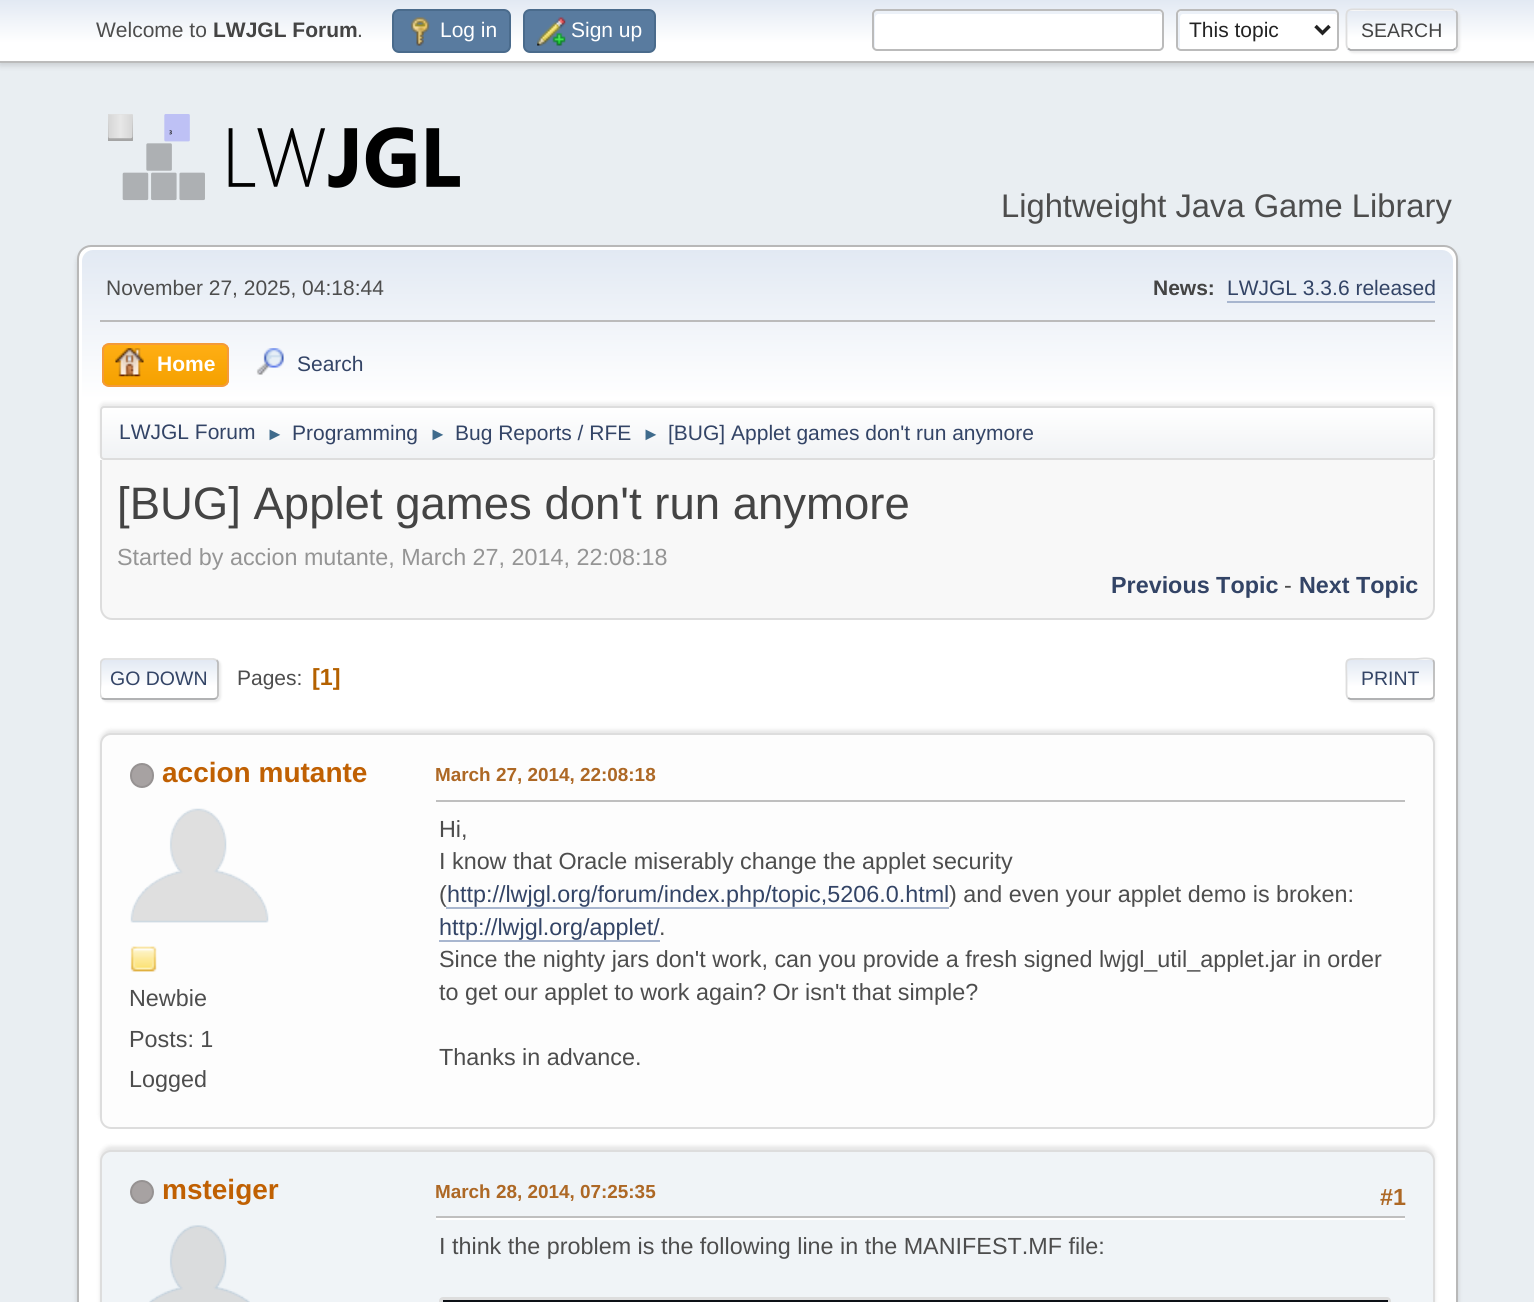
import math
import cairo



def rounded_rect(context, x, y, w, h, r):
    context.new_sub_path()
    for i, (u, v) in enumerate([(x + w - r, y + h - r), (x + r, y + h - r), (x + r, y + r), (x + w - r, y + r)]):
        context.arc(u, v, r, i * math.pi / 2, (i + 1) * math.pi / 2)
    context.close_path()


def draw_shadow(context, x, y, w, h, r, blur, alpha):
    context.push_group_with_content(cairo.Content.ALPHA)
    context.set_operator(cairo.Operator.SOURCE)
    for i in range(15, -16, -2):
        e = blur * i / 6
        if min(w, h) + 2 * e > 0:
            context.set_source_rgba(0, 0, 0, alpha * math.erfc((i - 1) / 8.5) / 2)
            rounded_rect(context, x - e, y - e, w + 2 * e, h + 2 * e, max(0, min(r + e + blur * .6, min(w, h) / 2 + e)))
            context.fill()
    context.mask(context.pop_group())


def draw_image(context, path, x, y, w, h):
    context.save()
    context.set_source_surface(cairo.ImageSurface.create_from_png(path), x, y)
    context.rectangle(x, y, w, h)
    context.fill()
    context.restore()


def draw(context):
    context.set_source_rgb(233 / 255, 238 / 255, 242 / 255)
    context.paint()
    context.set_source_rgb(0, 0, 0)
    draw_shadow(context, 0, 2, 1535, 63, 0, 3.5, 0.16)
    gradient = cairo.LinearGradient(767, 0, 767, 61)
    gradient.add_color_stop_rgba(0, 226 / 255, 233 / 255, 243 / 255, 1)
    gradient.add_color_stop_rgba(0.7, 1, 1, 1, 1)
    context.set_source(gradient)
    context.rectangle(0, 0, 1534, 61)
    context.fill()
    context.set_source_rgb(187 / 255, 187 / 255, 187 / 255)
    context.rectangle(0, 61, 1534, 2)
    context.fill()
    context.set_source_rgb(89 / 255, 123 / 255, 159 / 255)
    rounded_rect(context, 393, 10, 117, 42, 6)
    context.fill_preserve()
    context.set_source_rgb(74 / 255, 107 / 255, 140 / 255)
    context.stroke()
    draw_image(context, "images/1.png", 410, 17, 20, 29)
    context.set_source_rgb(89 / 255, 123 / 255, 159 / 255)
    rounded_rect(context, 524, 10, 131, 42, 6)
    context.fill_preserve()
    context.set_source_rgb(74 / 255, 107 / 255, 140 / 255)
    context.stroke()
    draw_image(context, "images/2.png", 537, 17, 29, 29)
    context.set_source_rgb(1, 1, 1)
    rounded_rect(context, 872, 9, 292, 42, 5)
    context.fill()
    context.set_source_rgb(236 / 255, 241 / 255, 248 / 255)
    context.new_path()
    context.move_to(878, 14)
    context.line_to(1160, 14)
    context.line_to(1162, 15)
    context.curve_to(1162, 13, 1160, 11, 1158, 11)
    context.line_to(877, 11)
    context.curve_to(875, 11, 873, 13, 873, 15)
    context.line_to(873, 45)
    context.curve_to(873, 46, 874, 48, 875, 48)
    context.line_to(875, 18)
    context.curve_to(875, 16, 877, 14, 878, 14)
    context.close_path()
    context.fill()
    rounded_rect(context, 873, 10, 290, 40, 4)
    context.set_source_rgb(187 / 255, 187 / 255, 187 / 255)
    context.stroke()
    context.set_source_rgb(1, 1, 1)
    rounded_rect(context, 1176, 9, 163, 42, 5)
    context.fill()
    context.set_source_rgb(236 / 255, 241 / 255, 248 / 255)
    context.new_path()
    context.move_to(1183, 14)
    context.line_to(1335, 14)
    context.line_to(1337, 15)
    context.curve_to(1337, 13, 1335, 11, 1333, 11)
    context.line_to(1182, 11)
    context.curve_to(1180, 11, 1178, 13, 1178, 15)
    context.line_to(1178, 45)
    context.curve_to(1178, 46, 1179, 48, 1180, 48)
    context.line_to(1180, 18)
    context.curve_to(1180, 16, 1181, 14, 1183, 14)
    context.close_path()
    context.fill()
    rounded_rect(context, 1177, 10, 161, 40, 4)
    context.set_source_rgb(187 / 255, 187 / 255, 187 / 255)
    context.stroke()
    context.new_path()
    context.move_to(1315.5, 26)
    context.line_to(1322.5, 33)
    context.line_to(1329.5, 26)
    context.set_source_rgb(34 / 255, 34 / 255, 34 / 255)
    context.set_line_width(3.5)
    context.stroke()
    context.set_source_rgb(221 / 255, 221 / 255, 221 / 255)
    draw_shadow(context, 1348, 11, 112, 42, 5, 1, 0.57)
    context.save()
    rounded_rect(context, 1346, 9, 112, 42, 5)
    context.clip()
    gradient = cairo.LinearGradient(1402, -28, 1402, 11)
    gradient.add_color_stop_rgba(0, 226 / 255, 233 / 255, 243 / 255, 1)
    gradient.add_color_stop_rgba(0.7, 1, 1, 1, 1)
    context.set_source(gradient)
    context.rectangle(1346, 9, 112, 2)
    context.fill()
    gradient = cairo.LinearGradient(1402, 10, 1402, 49)
    gradient.add_color_stop_rgba(0, 226 / 255, 233 / 255, 243 / 255, 1)
    gradient.add_color_stop_rgba(0.7, 1, 1, 1, 1)
    context.set_source(gradient)
    context.rectangle(1346, 11, 112, 38)
    context.fill()
    gradient = cairo.LinearGradient(1402, 49, 1402, 88)
    gradient.add_color_stop_rgba(0, 226 / 255, 233 / 255, 243 / 255, 1)
    gradient.add_color_stop_rgba(0.7, 1, 1, 1, 1)
    context.set_source(gradient)
    context.rectangle(1346, 49, 112, 2)
    context.fill()
    context.restore()
    context.new_path()
    context.move_to(1455.5, 11)
    context.curve_to(1456.5, 11.5, 1457, 13, 1457, 14)
    context.line_to(1457, 45.5)
    context.curve_to(1457, 46.5, 1456.5, 48, 1455.5, 48.5)
    context.set_source_rgb(187 / 255, 187 / 255, 187 / 255)
    context.set_line_width(1.8)
    context.stroke()
    context.new_path()
    context.move_to(1455.5, 48.5)
    context.line_to(1453, 50)
    context.line_to(1350.5, 50)
    context.line_to(1348, 48.5)
    context.set_source_rgb(170 / 255, 170 / 255, 170 / 255)
    context.stroke()
    context.new_path()
    context.move_to(1348, 48.5)
    context.curve_to(1346, 46.5, 1346.5, 42.5, 1346.5, 40)
    context.line_to(1346.5, 30)
    context.curve_to(1346.5, 6, 1343, 9.5, 1368, 9.5)
    context.line_to(1452.5, 9.5)
    context.line_to(1455.5, 11)
    context.set_source_rgb(221 / 255, 221 / 255, 221 / 255)
    context.stroke()
    draw_image(context, "images/3.png", 108, 114, 352, 87)
    context.set_source_rgb(0, 0, 0)
    draw_shadow(context, 77, 249, 1381, 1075, 14, 2.5, 0.14)
    context.set_source_rgb(1, 1, 1)
    rounded_rect(context, 78, 246, 1379, 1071, 13)
    context.fill_preserve()
    context.set_source_rgb(184 / 255, 184 / 255, 184 / 255)
    context.set_line_width(2)
    context.stroke()
    gradient = cairo.LinearGradient(767, 250, 767, 464)
    gradient.add_color_stop_rgba(0, 226 / 255, 233 / 255, 243 / 255, 1)
    gradient.add_color_stop_rgba(0.7, 1, 1, 1, 1)
    context.set_source(gradient)
    context.new_path()
    context.move_to(93, 250)
    context.line_to(1442, 250)
    context.curve_to(1448, 250, 1453, 255, 1453, 261)
    context.line_to(1453, 464)
    context.line_to(82, 464)
    context.line_to(82, 261)
    context.curve_to(82, 255, 87, 250, 93, 250)
    context.close_path()
    context.fill()
    context.set_source_rgb(187 / 255, 187 / 255, 187 / 255)
    context.rectangle(100, 320, 1335, 2)
    context.fill()
    context.set_source_rgb(168 / 255, 182 / 255, 207 / 255)
    context.rectangle(1227, 301, 208, 2)
    context.fill()
    context.save()
    rounded_rect(context, 102, 343, 127, 44, 7)
    context.clip()
    gradient = cairo.LinearGradient(165, 345, 165, 385)
    gradient.add_color_stop_rgba(0, 1, 174 / 255, 20 / 255, 1)
    gradient.add_color_stop_rgba(1, 245 / 255, 161 / 255, 0, 1)
    context.set_source(gradient)
    context.rectangle(102, 345, 127, 40)
    context.fill()
    context.restore()
    rounded_rect(context, 103, 344, 125, 42, 6)
    context.set_source_rgb(244 / 255, 154 / 255, 58 / 255)
    context.stroke()
    draw_image(context, "images/4.png", 115, 348, 29, 29)
    draw_image(context, "images/5.png", 256, 348, 28, 27)
    context.set_source_rgb(0, 0, 0)
    draw_shadow(context, 100, 403, 1335, 54, 4, 2, 0.08)
    context.save()
    rounded_rect(context, 100, 406, 1335, 54, 4)
    context.clip()
    gradient = cairo.LinearGradient(767, 408, 767, 459)
    gradient.add_color_stop_rgba(0, 1, 1, 1, 1)
    gradient.add_color_stop_rgba(0.95, 241 / 255, 243 / 255, 245 / 255, 1)
    context.set_source(gradient)
    context.rectangle(100, 408, 1335, 51)
    context.fill()
    context.restore()
    rounded_rect(context, 101, 407, 1333, 52, 3)
    context.set_source_rgb(221 / 255, 221 / 255, 221 / 255)
    context.stroke()
    context.set_source_rgb(248 / 255, 248 / 255, 248 / 255)
    context.new_path()
    context.move_to(100, 460)
    context.line_to(1435, 460)
    context.line_to(1435, 608)
    context.curve_to(1435, 614.5, 1429.5, 620, 1423, 620)
    context.line_to(112, 620)
    context.curve_to(105.5, 620, 100, 614.5, 100, 608)
    context.close_path()
    context.fill()
    context.set_source_rgb(221 / 255, 221 / 255, 221 / 255)
    context.set_fill_rule(cairo.FillRule.EVEN_ODD)
    context.new_path()
    context.move_to(100, 460)
    context.line_to(1435, 460)
    context.line_to(1435, 607)
    context.curve_to(1435, 614, 1430, 620, 1423, 620)
    context.line_to(112, 620)
    context.curve_to(105, 620, 100, 614, 100, 607)
    context.close_path()
    context.move_to(102, 460)
    context.line_to(1433, 460)
    context.line_to(1433, 607)
    context.curve_to(1433, 613, 1429, 618, 1423, 618)
    context.line_to(112, 618)
    context.curve_to(106, 618, 102, 613, 102, 607)
    context.close_path()
    context.fill()
    context.set_source_rgb(221 / 255, 221 / 255, 221 / 255)
    draw_shadow(context, 102, 660, 119, 42, 5, 1, 0.57)
    context.set_source_rgb(1, 1, 1)
    rounded_rect(context, 100, 658, 119, 42, 5)
    context.fill()
    context.save()
    context.set_fill_rule(cairo.FillRule.WINDING)
    rounded_rect(context, 100, 658, 119, 42, 5)
    context.clip()
    gradient = cairo.LinearGradient(159, 660, 159, 698)
    gradient.add_color_stop_rgba(0, 226 / 255, 233 / 255, 243 / 255, 1)
    gradient.add_color_stop_rgba(0.7, 1, 1, 1, 1)
    context.set_source(gradient)
    context.rectangle(100, 660, 119, 38)
    context.fill()
    gradient = cairo.LinearGradient(159, 698, 159, 737)
    gradient.add_color_stop_rgba(0, 226 / 255, 233 / 255, 243 / 255, 1)
    gradient.add_color_stop_rgba(0.7, 1, 1, 1, 1)
    context.set_source(gradient)
    context.rectangle(100, 698, 119, 2)
    context.fill()
    context.restore()
    context.new_path()
    context.move_to(216.5, 660)
    context.curve_to(217.5, 661, 218, 662, 218, 663)
    context.line_to(218, 695)
    context.curve_to(218, 696, 217.5, 697, 216.5, 698)
    context.set_source_rgb(187 / 255, 187 / 255, 187 / 255)
    context.set_line_width(1.8)
    context.stroke()
    context.new_path()
    context.move_to(216.5, 698)
    context.curve_to(216, 698.5, 214.5, 699, 213.5, 699)
    context.line_to(105, 699)
    context.curve_to(104, 699, 102.5, 698.5, 102, 698)
    context.set_source_rgb(170 / 255, 170 / 255, 170 / 255)
    context.stroke()
    context.save()
    context.set_fill_rule(cairo.FillRule.WINDING)
    context.rectangle(100, 646, 1335, 66)
    context.clip()
    context.new_path()
    context.move_to(102, 698)
    context.curve_to(99, 695, 100.5, 687.5, 100.5, 684)
    context.line_to(100.5, 668.5)
    context.curve_to(100.5, 665, 100, 659, 105, 659)
    context.line_to(213.5, 659)
    context.line_to(216.5, 660)
    context.set_source_rgb(221 / 255, 221 / 255, 221 / 255)
    context.stroke()
    context.restore()
    context.save()
    context.set_fill_rule(cairo.FillRule.WINDING)
    context.rectangle(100, 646, 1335, 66)
    context.clip()
    context.set_source_rgb(221 / 255, 221 / 255, 221 / 255)
    draw_shadow(context, 1348, 660, 89, 42, 5, 1, 0.57)
    context.restore()
    context.set_source_rgb(1, 1, 1)
    rounded_rect(context, 1346, 658, 89, 42, 5)
    context.fill()
    context.save()
    context.set_fill_rule(cairo.FillRule.WINDING)
    rounded_rect(context, 1346, 658, 89, 42, 5)
    context.clip()
    gradient = cairo.LinearGradient(1390, 660, 1390, 698)
    gradient.add_color_stop_rgba(0, 226 / 255, 233 / 255, 243 / 255, 1)
    gradient.add_color_stop_rgba(0.7, 1, 1, 1, 1)
    context.set_source(gradient)
    context.rectangle(1346, 660, 89, 38)
    context.fill()
    gradient = cairo.LinearGradient(1390, 698, 1390, 737)
    gradient.add_color_stop_rgba(0, 226 / 255, 233 / 255, 243 / 255, 1)
    gradient.add_color_stop_rgba(0.7, 1, 1, 1, 1)
    context.set_source(gradient)
    context.rectangle(1346, 698, 89, 2)
    context.fill()
    context.restore()
    context.new_path()
    context.move_to(1433, 660)
    context.curve_to(1433.5, 661, 1434, 662, 1434, 663)
    context.line_to(1434, 695)
    context.curve_to(1434, 696, 1433.5, 697, 1433, 698)
    context.set_source_rgb(187 / 255, 187 / 255, 187 / 255)
    context.stroke()
    context.new_path()
    context.move_to(1433, 698)
    context.line_to(1430, 699)
    context.line_to(1350.5, 699)
    context.line_to(1348, 698)
    context.set_source_rgb(170 / 255, 170 / 255, 170 / 255)
    context.stroke()
    context.new_path()
    context.move_to(1348, 698)
    context.curve_to(1346, 696, 1346.5, 692, 1346.5, 689.5)
    context.line_to(1346.5, 679)
    context.curve_to(1346.5, 657, 1342.5, 659, 1364, 659)
    context.line_to(1416.5, 659)
    context.curve_to(1418, 659, 1429.5, 657, 1433, 660)
    context.set_source_rgb(221 / 255, 221 / 255, 221 / 255)
    context.stroke()
    context.set_source_rgb(0, 0, 0)
    draw_shadow(context, 100, 730, 1335, 395, 11, 2, 0.1)
    context.set_source_rgb(253 / 255, 253 / 255, 253 / 255)
    rounded_rect(context, 101, 734, 1333, 394, 10)
    context.fill_preserve()
    context.set_source_rgb(221 / 255, 221 / 255, 221 / 255)
    context.set_line_width(2)
    context.stroke()
    context.set_source_rgb(167 / 255, 162 / 255, 162 / 255)
    rounded_rect(context, 131, 764, 22, 23, 11)
    context.fill_preserve()
    context.set_source_rgb(150 / 255, 146 / 255, 146 / 255)
    context.stroke()
    draw_image(context, "images/6.png", 130, 808, 139, 115)
    draw_image(context, "images/7.png", 130, 946, 27, 26)
    context.set_source_rgb(191 / 255, 191 / 255, 191 / 255)
    context.rectangle(436, 800, 969, 2)
    context.fill()
    context.set_source_rgb(168 / 255, 182 / 255, 207 / 255)
    context.rectangle(446, 907, 503, 2)
    context.fill()
    context.rectangle(439, 940, 221, 2)
    context.fill()
    context.set_source_rgb(0, 0, 0)
    draw_shadow(context, 100, 1146, 1335, 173, 11, 2, 0.1)
    context.set_source_rgb(240 / 255, 244 / 255, 247 / 255)
    rounded_rect(context, 101, 1151, 1333, 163, 10)
    context.fill_preserve()
    context.set_source_rgb(221 / 255, 221 / 255, 221 / 255)
    context.stroke()
    context.set_source_rgb(167 / 255, 162 / 255, 162 / 255)
    context.arc(142, 1192, 11, 0, 2 * math.pi)
    context.fill_preserve()
    context.set_source_rgb(150 / 255, 146 / 255, 146 / 255)
    context.stroke()
    draw_image(context, "images/8.png", 149, 1225, 101, 77)
    context.set_source_rgb(1, 1, 1)
    context.rectangle(436, 1218, 969, 2)
    context.fill()
    context.set_source_rgb(191 / 255, 191 / 255, 191 / 255)
    context.rectangle(436, 1216, 969, 2)
    context.fill()
    rounded_rect(context, 441, 1299, 948, 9, 2)
    context.set_source_rgb(221 / 255, 221 / 255, 221 / 255)
    context.set_line_width(4)
    context.stroke()
    context.set_source_rgb(13 / 255, 17 / 255, 23 / 255)
    context.rectangle(443, 1300, 945, 2)
    context.fill()
    context.select_font_face("Liberation Sans")
    context.set_font_size(21)
    context.set_source_rgb(77 / 255, 77 / 255, 77 / 255)
    context.move_to(96, 37)
    context.show_text("Welcome to")
    context.select_font_face("Liberation Sans", cairo.FontSlant.NORMAL, cairo.FontWeight.BOLD)
    context.set_source_rgb(68 / 255, 68 / 255, 68 / 255)
    context.move_to(213, 37)
    context.show_text("LWJGL Forum")
    context.select_font_face("Liberation Sans")
    context.set_source_rgb(77 / 255, 77 / 255, 77 / 255)
    context.move_to(357, 37)
    context.show_text(".")
    context.set_source_rgb(1, 1, 1)
    context.move_to(440, 37)
    context.show_text("Log in")
    context.move_to(571, 37)
    context.show_text("Sign up")
    context.set_source_rgb(34 / 255, 34 / 255, 34 / 255)
    context.move_to(1189, 37)
    context.show_text("This topic")
    context.set_font_size(19.5)
    context.set_source_rgb(68 / 255, 68 / 255, 68 / 255)
    context.move_to(1361, 37)
    context.show_text("SEARCH")
    context.set_font_size(32.7)
    context.set_source_rgb(77 / 255, 77 / 255, 77 / 255)
    context.move_to(1001, 217)
    context.show_text("Lightweight Java Game Library")
    context.set_font_size(21)
    context.move_to(106, 295)
    context.show_text("November 27, 2025, 04:18:44")
    context.select_font_face("Liberation Sans", cairo.FontSlant.NORMAL, cairo.FontWeight.BOLD)
    context.set_source_rgb(68 / 255, 68 / 255, 68 / 255)
    context.move_to(1153, 295)
    context.show_text("News:")
    context.select_font_face("Liberation Sans")
    context.set_source_rgb(51 / 255, 68 / 255, 102 / 255)
    context.move_to(1227, 295)
    context.show_text("LWJGL 3.3.6 released")
    context.select_font_face("Liberation Sans", cairo.FontSlant.NORMAL, cairo.FontWeight.BOLD)
    context.set_source_rgb(1, 1, 1)
    context.move_to(157, 371)
    context.show_text("Home")
    context.select_font_face("Liberation Sans")
    context.set_source_rgb(51 / 255, 68 / 255, 102 / 255)
    context.move_to(297, 371)
    context.show_text("Search")
    context.move_to(119, 439)
    context.show_text("LWJGL Forum")
    context.set_font_size(18)
    context.set_source_rgb(63 / 255, 107 / 255, 140 / 255)
    context.move_to(266, 440)
    context.show_text("►")
    context.set_font_size(21)
    context.set_source_rgb(51 / 255, 68 / 255, 102 / 255)
    context.move_to(292, 440)
    context.show_text("Programming")
    context.set_font_size(18)
    context.set_source_rgb(63 / 255, 107 / 255, 140 / 255)
    context.move_to(429, 440)
    context.show_text("►")
    context.set_font_size(21)
    context.set_source_rgb(51 / 255, 68 / 255, 102 / 255)
    context.move_to(455, 440)
    context.show_text("Bug Reports / RFE")
    context.set_font_size(18)
    context.set_source_rgb(63 / 255, 107 / 255, 140 / 255)
    context.move_to(642, 440)
    context.show_text("►")
    context.set_font_size(21)
    context.set_source_rgb(51 / 255, 68 / 255, 102 / 255)
    context.move_to(668, 440)
    context.show_text("[BUG] Applet games don't run anymore")
    context.set_font_size(45.5)
    context.set_source_rgb(68 / 255, 68 / 255, 68 / 255)
    context.move_to(117, 519)
    context.show_text("[BUG] Applet games don't run anymore")
    context.set_font_size(23.35)
    context.set_source_rgb(149 / 255, 149 / 255, 149 / 255)
    context.move_to(117, 565)
    context.show_text("Started by accion mutante, March 27, 2014, 22:08:18")
    context.select_font_face("Liberation Sans", cairo.FontSlant.NORMAL, cairo.FontWeight.BOLD)
    context.set_source_rgb(51 / 255, 68 / 255, 102 / 255)
    context.move_to(1111, 593)
    context.show_text("Previous Topic")
    context.select_font_face("Liberation Sans")
    context.set_source_rgb(77 / 255, 77 / 255, 77 / 255)
    context.move_to(1284, 593)
    context.show_text("-")
    context.select_font_face("Liberation Sans", cairo.FontSlant.NORMAL, cairo.FontWeight.BOLD)
    context.set_source_rgb(51 / 255, 68 / 255, 102 / 255)
    context.move_to(1299, 593)
    context.show_text("Next Topic")
    context.select_font_face("Liberation Sans")
    context.set_font_size(19.5)
    context.move_to(110, 685)
    context.show_text("GO DOWN")
    context.set_font_size(21)
    context.set_source_rgb(77 / 255, 77 / 255, 77 / 255)
    context.move_to(237, 685)
    context.show_text("Pages:")
    context.select_font_face("Liberation Sans", cairo.FontSlant.NORMAL, cairo.FontWeight.BOLD)
    context.set_font_size(23.35)
    context.set_source_rgb(180 / 255, 97 / 255, 0)
    context.move_to(312, 685)
    context.show_text("[1]")
    context.select_font_face("Liberation Sans")
    context.set_font_size(19.5)
    context.set_source_rgb(51 / 255, 68 / 255, 102 / 255)
    context.move_to(1361, 685)
    context.show_text("PRINT")
    context.select_font_face("Liberation Sans", cairo.FontSlant.NORMAL, cairo.FontWeight.BOLD)
    context.set_font_size(28)
    context.set_source_rgb(192 / 255, 96 / 255, 2 / 255)
    context.move_to(162, 782)
    context.show_text("accion mutante")
    context.select_font_face("Liberation Sans")
    context.set_font_size(23.35)
    context.set_source_rgb(77 / 255, 77 / 255, 77 / 255)
    context.move_to(129, 1006)
    context.show_text("Newbie")
    context.move_to(129, 1047)
    context.show_text("Posts: 1")
    context.move_to(129, 1087)
    context.show_text("Logged")
    context.select_font_face("Liberation Sans", cairo.FontSlant.NORMAL, cairo.FontWeight.BOLD)
    context.set_font_size(18.9)
    context.set_source_rgb(173 / 255, 104 / 255, 37 / 255)
    context.move_to(435, 781)
    context.show_text("March 27, 2014, 22:08:18")
    context.select_font_face("Liberation Sans")
    context.set_font_size(23.35)
    context.set_source_rgb(77 / 255, 77 / 255, 77 / 255)
    context.move_to(439, 837)
    context.show_text("Hi,")
    context.move_to(439, 869)
    context.show_text("I know that Oracle miserably change the applet security")
    context.move_to(439, 902)
    context.show_text("(")
    context.set_source_rgb(51 / 255, 68 / 255, 102 / 255)
    context.move_to(447, 902)
    context.show_text("http://lwjgl.org/forum/index.php/topic,5206.0.html")
    context.set_source_rgb(77 / 255, 77 / 255, 77 / 255)
    context.move_to(949, 902)
    context.show_text(") and even your applet demo is broken:")
    context.set_source_rgb(51 / 255, 68 / 255, 102 / 255)
    context.move_to(439, 935)
    context.show_text("http://lwjgl.org/applet/")
    context.set_source_rgb(77 / 255, 77 / 255, 77 / 255)
    context.move_to(659, 935)
    context.show_text(".")
    context.move_to(439, 967)
    context.show_text("Since the nighty jars don't work, can you provide a fresh signed lwjgl_util_applet.jar in order")
    context.move_to(439, 1000)
    context.show_text("to get our applet to work again? Or isn't that simple?")
    context.move_to(439, 1065)
    context.show_text("Thanks in advance.")
    context.select_font_face("Liberation Sans", cairo.FontSlant.NORMAL, cairo.FontWeight.BOLD)
    context.set_font_size(28)
    context.set_source_rgb(192 / 255, 96 / 255, 2 / 255)
    context.move_to(162, 1199)
    context.show_text("msteiger")
    context.set_font_size(18.9)
    context.set_source_rgb(173 / 255, 104 / 255, 37 / 255)
    context.move_to(435, 1198)
    context.show_text("March 28, 2014, 07:25:35")
    context.set_font_size(23.35)
    context.move_to(1380, 1205)
    context.show_text("#1")
    context.select_font_face("Liberation Sans")
    context.set_source_rgb(77 / 255, 77 / 255, 77 / 255)
    context.move_to(439, 1254)
    context.show_text("I think the problem is the following line in the MANIFEST.MF file:")


surface = cairo.ImageSurface(cairo.Format.RGB24, 1534, 1302)
context = cairo.Context(surface)
options = cairo.FontOptions()
options.set_hint_metrics(cairo.HintMetrics.OFF)
options.set_hint_style(cairo.HintStyle.NONE)
context.set_font_options(options)
context.set_miter_limit(4)
draw(context)
surface.write_to_png("out.png")
